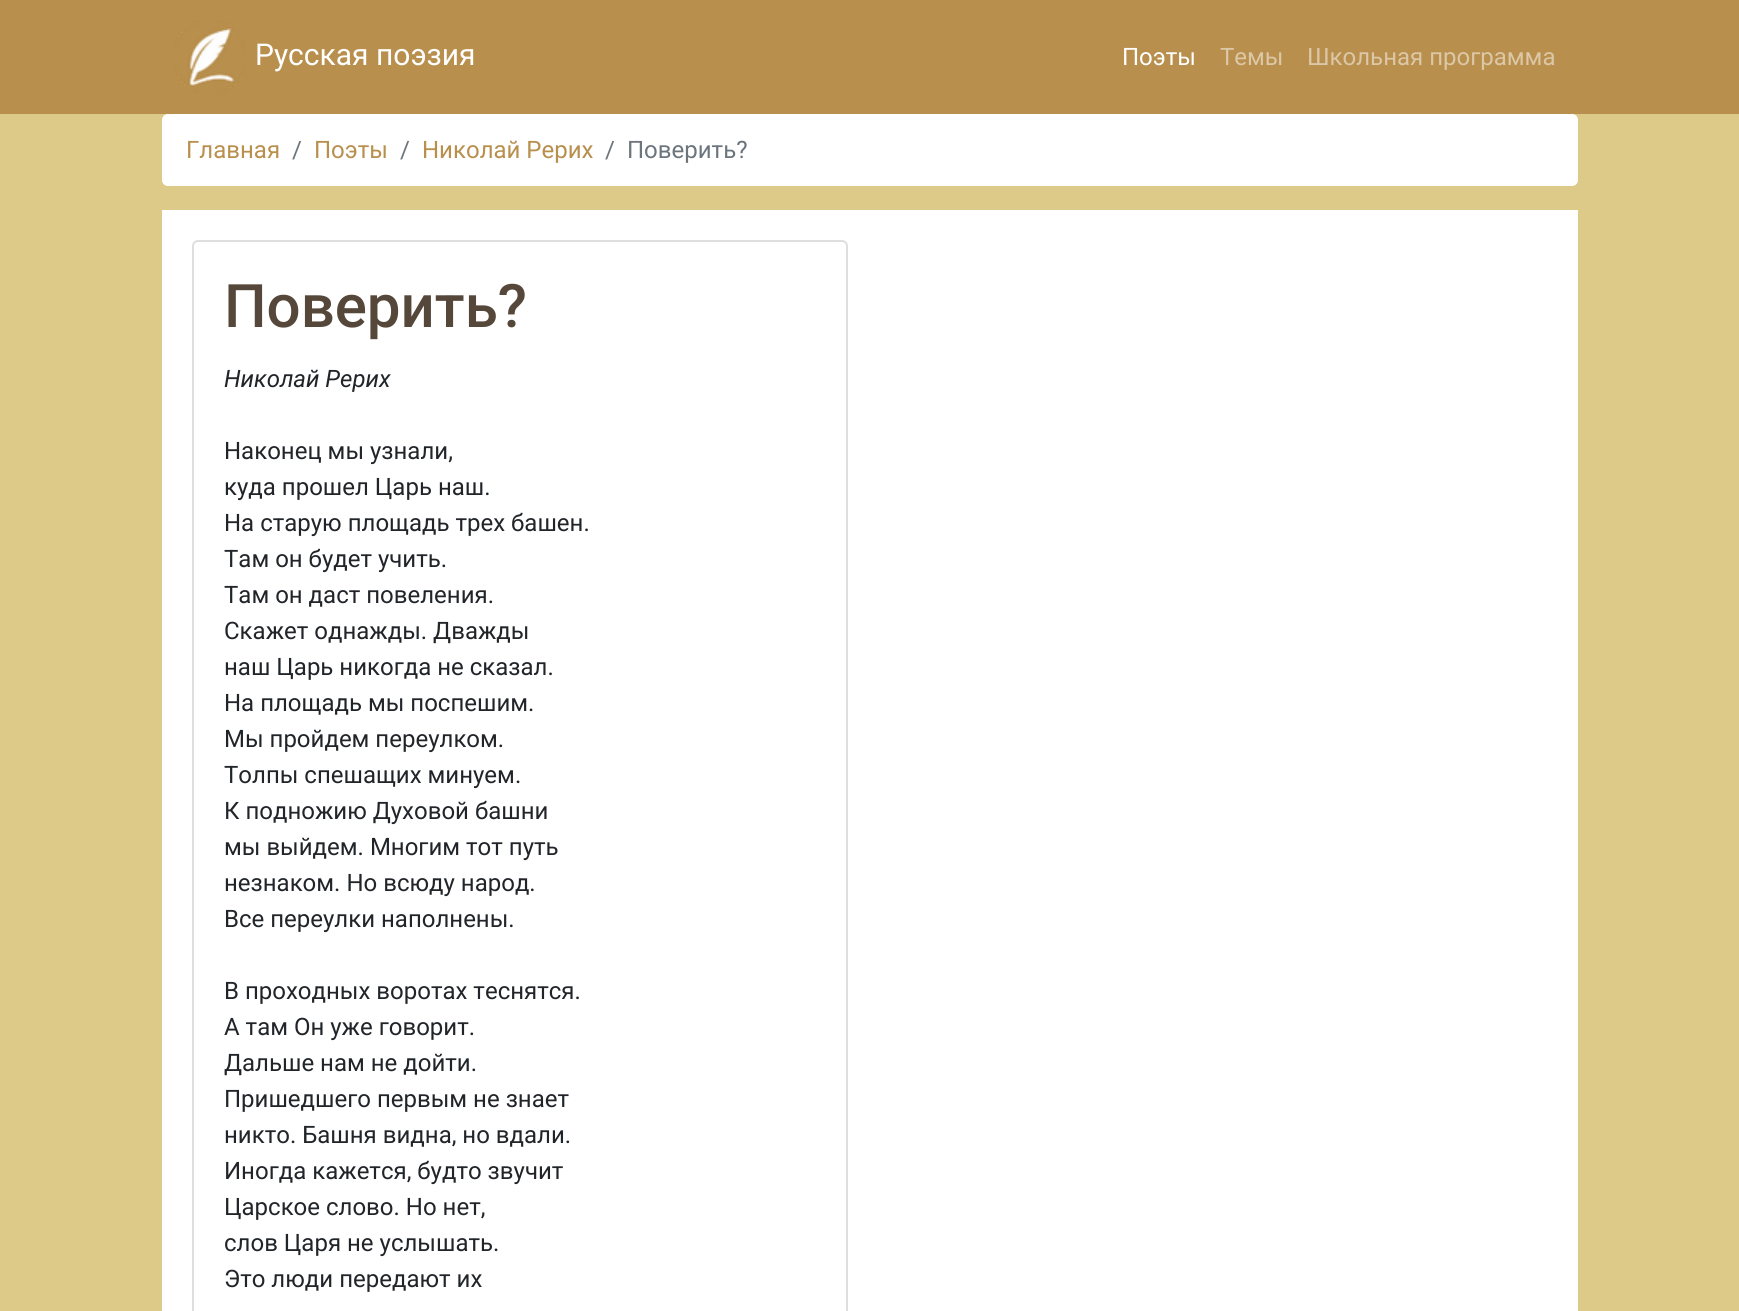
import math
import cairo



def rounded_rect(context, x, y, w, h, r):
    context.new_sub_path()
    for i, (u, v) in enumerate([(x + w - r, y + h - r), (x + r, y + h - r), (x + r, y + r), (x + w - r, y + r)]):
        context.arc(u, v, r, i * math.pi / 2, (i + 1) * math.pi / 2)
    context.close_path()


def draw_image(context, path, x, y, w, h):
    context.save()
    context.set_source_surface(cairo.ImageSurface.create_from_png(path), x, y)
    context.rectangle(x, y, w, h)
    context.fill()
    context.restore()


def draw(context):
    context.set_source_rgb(222 / 255, 202 / 255, 136 / 255)
    context.paint()
    context.set_source_rgb(184 / 255, 143 / 255, 77 / 255)
    context.rectangle(0, 0, 1739, 114)
    context.fill()
    draw_image(context, "images/1.png", 173, 20, 73, 73)
    context.set_source_rgb(1, 1, 1)
    rounded_rect(context, 162, 114, 1416, 72, 6)
    context.fill()
    context.rectangle(162, 210, 1416, 1101)
    context.fill()
    rounded_rect(context, 193, 241, 654, 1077, 5)
    context.set_source_rgb(223 / 255, 223 / 255, 223 / 255)
    context.stroke()
    context.select_font_face("Roboto")
    context.set_font_size(30)
    context.set_source_rgb(1, 1, 1)
    context.move_to(255, 65)
    context.show_text("Русская поэзия")
    context.set_font_size(24)
    context.move_to(1122, 65)
    context.show_text("Поэты")
    context.set_source_rgb(220 / 255, 199 / 255, 166 / 255)
    context.move_to(1220, 65)
    context.show_text("Темы")
    context.move_to(1307, 65)
    context.show_text("Школьная программа")
    context.set_source_rgb(184 / 255, 143 / 255, 77 / 255)
    context.move_to(186, 158)
    context.show_text("Главная")
    context.set_source_rgb(108 / 255, 117 / 255, 125 / 255)
    context.move_to(292, 158)
    context.show_text("/")
    context.set_source_rgb(184 / 255, 143 / 255, 77 / 255)
    context.move_to(314, 158)
    context.show_text("Поэты")
    context.set_source_rgb(108 / 255, 117 / 255, 125 / 255)
    context.move_to(400, 158)
    context.show_text("/")
    context.set_source_rgb(184 / 255, 143 / 255, 77 / 255)
    context.move_to(422, 158)
    context.show_text("Николай Рерих")
    context.set_source_rgb(108 / 255, 117 / 255, 125 / 255)
    context.move_to(605, 158)
    context.show_text("/")
    context.move_to(627, 158)
    context.show_text("Поверить?")
    context.select_font_face("Roboto Medium")
    context.set_font_size(60)
    context.set_source_rgb(85 / 255, 71 / 255, 58 / 255)
    context.move_to(224, 327)
    context.show_text("Поверить?")
    context.select_font_face("Roboto", cairo.FontSlant.ITALIC)
    context.set_font_size(24)
    context.set_source_rgb(33 / 255, 37 / 255, 41 / 255)
    context.move_to(224, 387)
    context.show_text("Николай Рерих")
    context.select_font_face("Roboto")
    context.move_to(224, 459)
    context.show_text("Наконец мы узнали,")
    context.move_to(224, 495)
    context.show_text("куда прошел Царь наш.")
    context.move_to(224, 531)
    context.show_text("На старую площадь трех башен.")
    context.move_to(224, 567)
    context.show_text("Там он будет учить.")
    context.move_to(224, 603)
    context.show_text("Там он даст повеления.")
    context.move_to(224, 639)
    context.show_text("Скажет однажды. Дважды")
    context.move_to(224, 675)
    context.show_text("наш Царь никогда не сказал.")
    context.move_to(224, 711)
    context.show_text("На площадь мы поспешим.")
    context.move_to(224, 747)
    context.show_text("Мы пройдем переулком.")
    context.move_to(224, 783)
    context.show_text("Толпы спешащих минуем.")
    context.move_to(224, 819)
    context.show_text("К подножию Духовой башни")
    context.move_to(224, 855)
    context.show_text("мы выйдем. Многим тот путь")
    context.move_to(224, 891)
    context.show_text("незнаком. Но всюду народ.")
    context.move_to(224, 927)
    context.show_text("Все переулки наполнены.")
    context.move_to(224, 999)
    context.show_text("В проходных воротах теснятся.")
    context.move_to(224, 1035)
    context.show_text("А там Он уже говорит.")
    context.move_to(224, 1071)
    context.show_text("Дальше нам не дойти.")
    context.move_to(224, 1107)
    context.show_text("Пришедшего первым не знает")
    context.move_to(224, 1143)
    context.show_text("никто. Башня видна, но вдали.")
    context.move_to(224, 1179)
    context.show_text("Иногда кажется, будто звучит")
    context.move_to(224, 1215)
    context.show_text("Царское слово. Но нет,")
    context.move_to(224, 1251)
    context.show_text("слов Царя не услышать.")
    context.move_to(224, 1287)
    context.show_text("Это люди передают их")


surface = cairo.ImageSurface(cairo.Format.RGB24, 1739, 1311)
context = cairo.Context(surface)
options = cairo.FontOptions()
options.set_hint_metrics(cairo.HintMetrics.OFF)
options.set_hint_style(cairo.HintStyle.NONE)
context.set_font_options(options)
context.set_miter_limit(4)
draw(context)
surface.write_to_png("out.png")
